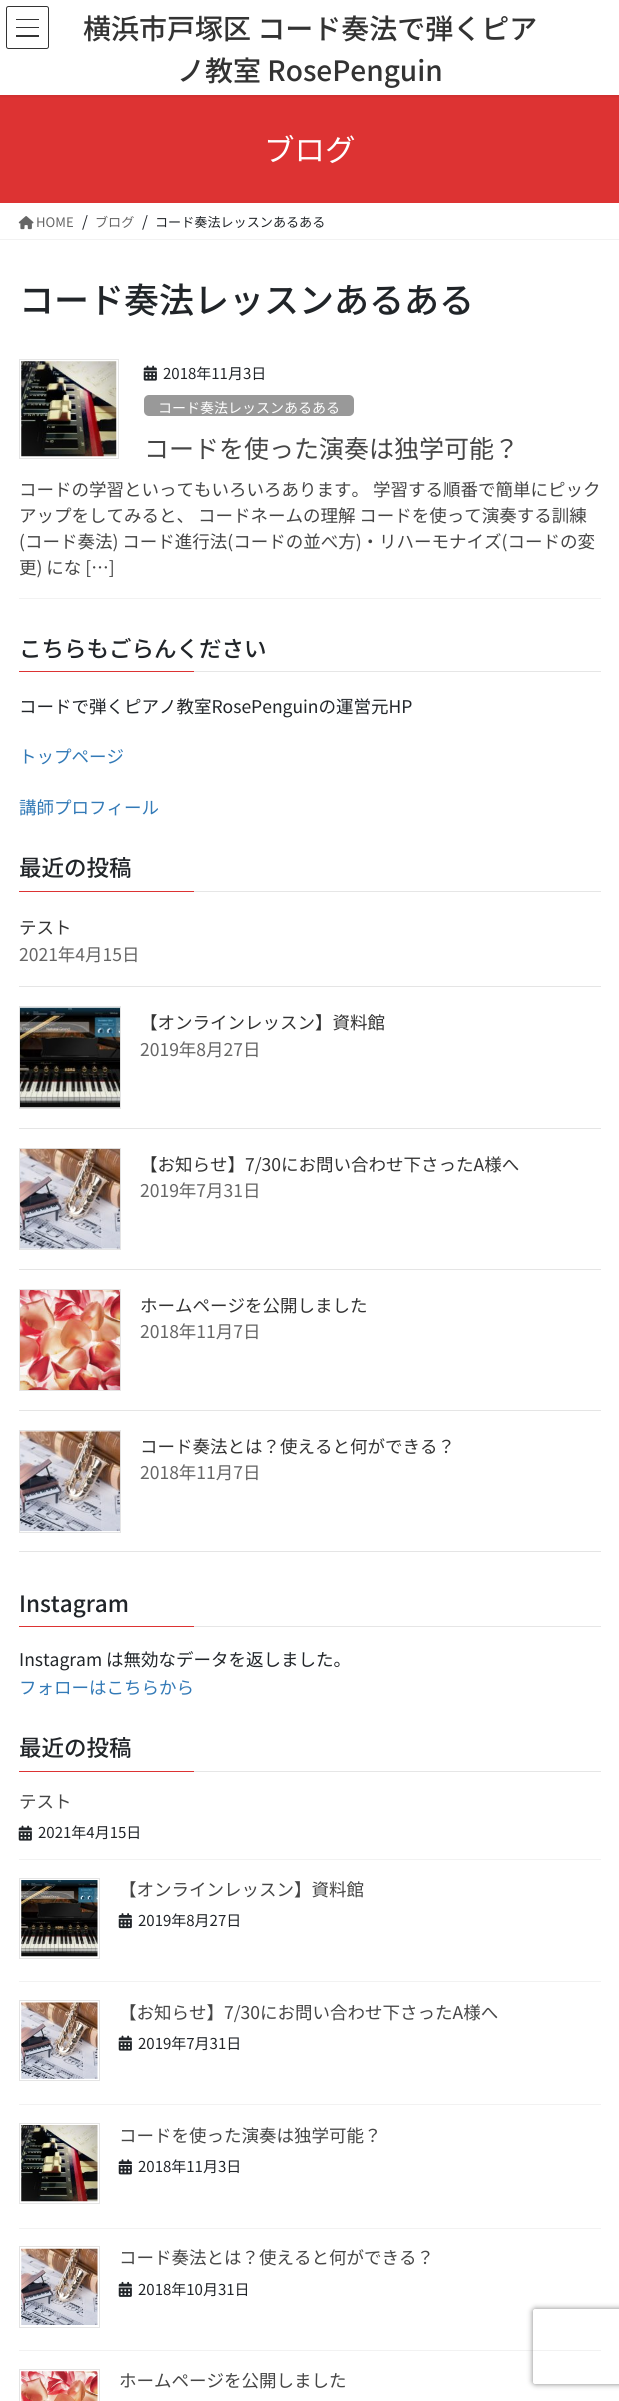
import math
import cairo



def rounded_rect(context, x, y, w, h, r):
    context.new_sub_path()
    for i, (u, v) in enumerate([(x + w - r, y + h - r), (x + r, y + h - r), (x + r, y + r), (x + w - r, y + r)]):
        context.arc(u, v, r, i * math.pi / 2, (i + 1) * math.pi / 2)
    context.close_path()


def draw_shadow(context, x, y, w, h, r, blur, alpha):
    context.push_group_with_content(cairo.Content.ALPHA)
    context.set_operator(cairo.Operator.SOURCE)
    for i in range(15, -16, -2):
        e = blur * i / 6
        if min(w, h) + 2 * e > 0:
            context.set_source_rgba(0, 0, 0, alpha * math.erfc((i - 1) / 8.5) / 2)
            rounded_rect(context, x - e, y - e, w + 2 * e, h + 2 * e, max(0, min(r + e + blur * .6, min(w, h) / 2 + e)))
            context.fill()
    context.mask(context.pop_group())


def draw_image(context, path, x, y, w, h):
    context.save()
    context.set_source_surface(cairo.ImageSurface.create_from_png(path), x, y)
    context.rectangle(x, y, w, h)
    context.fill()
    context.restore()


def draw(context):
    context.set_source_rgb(1, 1, 1)
    context.paint()
    context.set_source_rgb(221 / 255, 51 / 255, 51 / 255)
    context.rectangle(0, 95, 619, 108)
    context.fill()
    context.save()
    context.rectangle(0, 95, 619, 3)
    context.clip()
    context.set_source_rgb(0, 0, 0)
    draw_shadow(context, 0, 1, 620, 95, 0, 2, 0.1)
    context.restore()
    context.set_source_rgb(51 / 255, 51 / 255, 51 / 255)
    context.rectangle(16, 19, 23, 1)
    context.fill()
    context.rectangle(16, 27, 23, 1)
    context.fill()
    context.rectangle(16, 35, 23, 2)
    context.fill()
    rounded_rect(context, 6.5, 6.5, 42, 42, 2)
    context.set_line_width(1)
    context.stroke()
    context.set_source_rgb(242 / 255, 242 / 255, 242 / 255)
    context.rectangle(0, 239, 619, 1)
    context.fill()
    draw_image(context, "images/1.png", 18, 216, 16, 14)
    context.rectangle(19, 598, 582, 1)
    context.fill()
    context.rectangle(19.5, 359.5, 99, 99)
    context.set_source_rgb(229 / 255, 229 / 255, 229 / 255)
    context.stroke()
    draw_image(context, "images/2.png", 21, 361, 96, 96)
    draw_image(context, "images/3.png", 143, 365, 14, 16)
    context.set_source_rgb(153 / 255, 153 / 255, 153 / 255)
    rounded_rect(context, 144, 395, 210, 21, 5)
    context.fill()
    context.set_source_rgb(230 / 255, 230 / 255, 230 / 255)
    context.rectangle(194, 671, 407, 1)
    context.fill()
    context.set_source_rgb(221 / 255, 51 / 255, 51 / 255)
    context.rectangle(19, 671, 175, 1)
    context.fill()
    context.set_source_rgb(230 / 255, 230 / 255, 230 / 255)
    context.rectangle(194, 891, 407, 1)
    context.fill()
    context.set_source_rgb(221 / 255, 51 / 255, 51 / 255)
    context.rectangle(19, 891, 175, 1)
    context.fill()
    context.set_source_rgb(229 / 255, 229 / 255, 229 / 255)
    context.rectangle(19, 986, 582, 1)
    context.fill()
    context.rectangle(19, 1128, 582, 1)
    context.fill()
    context.rectangle(19.5, 1006.5, 101, 102)
    context.stroke()
    draw_image(context, "images/4.png", 20, 1007, 100, 101)
    context.rectangle(19, 1269, 582, 1)
    context.fill()
    context.rectangle(19.5, 1148.5, 101, 101)
    context.stroke()
    draw_image(context, "images/5.png", 20, 1148, 100, 101)
    context.rectangle(19, 1410, 582, 1)
    context.fill()
    context.rectangle(19.5, 1289.5, 101, 101)
    context.stroke()
    draw_image(context, "images/6.png", 20, 1290, 100, 100)
    context.rectangle(19, 1551, 582, 1)
    context.fill()
    context.rectangle(19.5, 1430.5, 101, 102)
    context.stroke()
    draw_image(context, "images/7.png", 20, 1431, 100, 101)
    context.set_source_rgb(230 / 255, 230 / 255, 230 / 255)
    context.rectangle(194, 1626, 407, 1)
    context.fill()
    context.set_source_rgb(221 / 255, 51 / 255, 51 / 255)
    context.rectangle(19, 1626, 175, 1)
    context.fill()
    context.set_source_rgb(230 / 255, 230 / 255, 230 / 255)
    context.rectangle(194, 1771, 407, 1)
    context.fill()
    context.set_source_rgb(221 / 255, 51 / 255, 51 / 255)
    context.rectangle(19, 1771, 175, 1)
    context.fill()
    context.set_source_rgb(242 / 255, 242 / 255, 242 / 255)
    context.rectangle(19, 1859, 582, 1)
    context.fill()
    draw_image(context, "images/3.png", 18, 1825, 14, 16)
    context.rectangle(19, 1981, 582, 1)
    context.fill()
    context.rectangle(19.5, 1878.5, 80, 80)
    context.set_source_rgb(229 / 255, 229 / 255, 229 / 255)
    context.stroke()
    draw_image(context, "images/8.png", 21, 1880, 77, 77)
    draw_image(context, "images/9.png", 118, 1913, 14, 16)
    context.set_source_rgb(242 / 255, 242 / 255, 242 / 255)
    context.rectangle(19, 2104, 582, 1)
    context.fill()
    context.rectangle(19.5, 2000.5, 80, 80)
    context.set_source_rgb(229 / 255, 229 / 255, 229 / 255)
    context.stroke()
    draw_image(context, "images/10.png", 21, 2002, 77, 77)
    draw_image(context, "images/3.png", 118, 2035, 14, 16)
    context.set_source_rgb(242 / 255, 242 / 255, 242 / 255)
    context.rectangle(19, 2228, 582, 1)
    context.fill()
    context.rectangle(19.5, 2123.5, 80, 80)
    context.set_source_rgb(229 / 255, 229 / 255, 229 / 255)
    context.stroke()
    draw_image(context, "images/11.png", 21, 2125, 77, 77)
    draw_image(context, "images/12.png", 118, 2159, 14, 16)
    context.set_source_rgb(242 / 255, 242 / 255, 242 / 255)
    context.rectangle(19, 2350, 582, 1)
    context.fill()
    context.rectangle(19.5, 2246.5, 80, 81)
    context.set_source_rgb(229 / 255, 229 / 255, 229 / 255)
    context.stroke()
    draw_image(context, "images/13.png", 21, 2248, 77, 77)
    draw_image(context, "images/14.png", 118, 2281, 14, 16)
    context.rectangle(19.5, 2369.5, 80, 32)
    context.stroke()
    draw_image(context, "images/15.png", 21, 2371, 77, 30)
    context.save()
    context.set_fill_rule(cairo.FillRule.EVEN_ODD)
    context.new_path()
    context.move_to(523, 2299)
    context.line_to(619, 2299)
    context.line_to(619, 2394)
    context.line_to(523, 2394)
    context.close_path()
    context.move_to(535.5, 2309)
    context.line_to(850.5, 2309)
    context.curve_to(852, 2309, 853, 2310, 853, 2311.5)
    context.line_to(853, 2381.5)
    context.curve_to(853, 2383, 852, 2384, 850.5, 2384)
    context.line_to(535.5, 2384)
    context.curve_to(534, 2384, 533, 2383, 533, 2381.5)
    context.line_to(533, 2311.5)
    context.curve_to(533, 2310, 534, 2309, 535.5, 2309)
    context.close_path()
    context.clip()
    context.set_source_rgb(128 / 255, 128 / 255, 128 / 255)
    draw_shadow(context, 533, 2309, 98, 75, 2.5, 3, 1)
    context.restore()
    context.select_font_face("Noto Sans JP Medium")
    context.set_font_size(28)
    context.set_source_rgb(51 / 255, 51 / 255, 51 / 255)
    context.move_to(83, 39)
    context.show_text("横浜市戸塚区 コード奏法で弾くピア")
    context.move_to(177, 81)
    context.show_text("ノ教室 RosePenguin")
    context.select_font_face("Noto Sans JP")
    context.set_font_size(30.5)
    context.set_source_rgb(1, 1, 1)
    context.move_to(264, 161)
    context.show_text("ブログ")
    context.set_font_size(13.1)
    context.set_source_rgb(102 / 255, 102 / 255, 102 / 255)
    context.move_to(36, 227)
    context.show_text("HOME")
    context.set_font_size(15)
    context.set_source_rgb(33 / 255, 37 / 255, 41 / 255)
    context.move_to(82, 227)
    context.show_text("/")
    context.set_font_size(13.1)
    context.set_source_rgb(102 / 255, 102 / 255, 102 / 255)
    context.move_to(95, 227)
    context.show_text("ブログ")
    context.set_font_size(15)
    context.set_source_rgb(33 / 255, 37 / 255, 41 / 255)
    context.move_to(142, 227)
    context.show_text("/")
    context.set_font_size(13.1)
    context.move_to(155, 227)
    context.show_text("コード奏法レッスンあるある")
    context.select_font_face("Noto Sans JP Medium")
    context.set_font_size(35)
    context.move_to(19, 313)
    context.show_text("コード奏法レッスンあるある")
    context.select_font_face("Noto Sans JP")
    context.set_font_size(15)
    context.move_to(163, 379)
    context.show_text("2018年11月3日")
    context.set_font_size(14)
    context.set_source_rgb(1, 1, 1)
    context.move_to(158, 413)
    context.show_text("コード奏法レッスンあるある")
    context.set_font_size(25)
    context.set_source_rgb(70 / 255, 70 / 255, 70 / 255)
    context.move_to(144, 458)
    context.show_text("コードを使った演奏は独学可能？")
    context.set_font_size(17.5)
    context.move_to(19, 496)
    context.show_text("コードの学習といってもいろいろあります。 学習する順番で簡単にピック")
    context.move_to(19, 522)
    context.show_text("アップをしてみると、 コードネームの理解 コードを使って演奏する訓練")
    context.move_to(19, 548)
    context.show_text("(コード奏法) コード進行法(コードの並べ方)・リハーモナイズ(コードの変")
    context.move_to(19, 574)
    context.show_text("更) にな […]")
    context.select_font_face("Noto Sans JP Medium")
    context.set_font_size(22.5)
    context.set_source_rgb(33 / 255, 37 / 255, 41 / 255)
    context.move_to(19, 657)
    context.show_text("こちらもごらんください")
    context.select_font_face("Noto Sans JP")
    context.set_font_size(17.5)
    context.move_to(19, 713)
    context.show_text("コードで弾くピアノ教室RosePenguinの運営元HP")
    context.set_source_rgb(51 / 255, 122 / 255, 183 / 255)
    context.move_to(19, 763)
    context.show_text("トップページ")
    context.move_to(19, 814)
    context.show_text("講師プロフィール")
    context.select_font_face("Noto Sans JP Medium")
    context.set_font_size(22.5)
    context.set_source_rgb(33 / 255, 37 / 255, 41 / 255)
    context.move_to(19, 876)
    context.show_text("最近の投稿")
    context.select_font_face("Noto Sans JP")
    context.set_font_size(17.5)
    context.set_source_rgb(51 / 255, 51 / 255, 51 / 255)
    context.move_to(19, 934)
    context.show_text("テスト")
    context.set_source_rgb(102 / 255, 102 / 255, 102 / 255)
    context.move_to(19, 961)
    context.show_text("2021年4月15日")
    context.set_source_rgb(51 / 255, 51 / 255, 51 / 255)
    context.move_to(140, 1029)
    context.show_text("【オンラインレッスン】資料館")
    context.set_source_rgb(102 / 255, 102 / 255, 102 / 255)
    context.move_to(140, 1056)
    context.show_text("2019年8月27日")
    context.set_source_rgb(51 / 255, 51 / 255, 51 / 255)
    context.move_to(140, 1171)
    context.show_text("【お知らせ】7/30にお問い合わせ下さったA様へ")
    context.set_source_rgb(102 / 255, 102 / 255, 102 / 255)
    context.move_to(140, 1197)
    context.show_text("2019年7月31日")
    context.set_source_rgb(51 / 255, 51 / 255, 51 / 255)
    context.move_to(140, 1312)
    context.show_text("ホームページを公開しました")
    context.set_source_rgb(102 / 255, 102 / 255, 102 / 255)
    context.move_to(140, 1338)
    context.show_text("2018年11月7日")
    context.set_source_rgb(51 / 255, 51 / 255, 51 / 255)
    context.move_to(140, 1453)
    context.show_text("コード奏法とは？使えると何ができる？")
    context.set_source_rgb(102 / 255, 102 / 255, 102 / 255)
    context.move_to(140, 1479)
    context.show_text("2018年11月7日")
    context.select_font_face("Noto Sans JP Medium")
    context.set_font_size(22.5)
    context.set_source_rgb(33 / 255, 37 / 255, 41 / 255)
    context.move_to(19, 1612)
    context.show_text("Instagram")
    context.select_font_face("Noto Sans JP")
    context.set_font_size(17.5)
    context.move_to(19, 1666)
    context.show_text("Instagram は無効なデータを返しました。")
    context.set_source_rgb(51 / 255, 122 / 255, 183 / 255)
    context.move_to(19, 1694)
    context.show_text("フォローはこちらから")
    context.select_font_face("Noto Sans JP Medium")
    context.set_font_size(22.5)
    context.set_source_rgb(33 / 255, 37 / 255, 41 / 255)
    context.move_to(19, 1756)
    context.show_text("最近の投稿")
    context.select_font_face("Noto Sans JP")
    context.set_font_size(17.5)
    context.set_source_rgb(70 / 255, 70 / 255, 70 / 255)
    context.move_to(19, 1808)
    context.show_text("テスト")
    context.set_font_size(15)
    context.set_source_rgb(33 / 255, 37 / 255, 41 / 255)
    context.move_to(38, 1838)
    context.show_text("2021年4月15日")
    context.set_font_size(17.5)
    context.set_source_rgb(70 / 255, 70 / 255, 70 / 255)
    context.move_to(119, 1896)
    context.show_text("【オンラインレッスン】資料館")
    context.set_font_size(15)
    context.set_source_rgb(33 / 255, 37 / 255, 41 / 255)
    context.move_to(138, 1926)
    context.show_text("2019年8月27日")
    context.set_font_size(17.5)
    context.set_source_rgb(70 / 255, 70 / 255, 70 / 255)
    context.move_to(119, 2019)
    context.show_text("【お知らせ】7/30にお問い合わせ下さったA様へ")
    context.set_font_size(15)
    context.set_source_rgb(33 / 255, 37 / 255, 41 / 255)
    context.move_to(138, 2049)
    context.show_text("2019年7月31日")
    context.set_font_size(17.5)
    context.set_source_rgb(70 / 255, 70 / 255, 70 / 255)
    context.move_to(119, 2142)
    context.show_text("コードを使った演奏は独学可能？")
    context.set_font_size(15)
    context.set_source_rgb(33 / 255, 37 / 255, 41 / 255)
    context.move_to(138, 2172)
    context.show_text("2018年11月3日")
    context.set_font_size(17.5)
    context.set_source_rgb(70 / 255, 70 / 255, 70 / 255)
    context.move_to(119, 2264)
    context.show_text("コード奏法とは？使えると何ができる？")
    context.set_font_size(15)
    context.set_source_rgb(33 / 255, 37 / 255, 41 / 255)
    context.move_to(138, 2295)
    context.show_text("2018年10月31日")
    context.set_font_size(17.5)
    context.set_source_rgb(70 / 255, 70 / 255, 70 / 255)
    context.move_to(119, 2387)
    context.show_text("ホームページを公開しました")


surface = cairo.ImageSurface(cairo.Format.RGB24, 619, 2401)
context = cairo.Context(surface)
options = cairo.FontOptions()
options.set_hint_metrics(cairo.HintMetrics.OFF)
options.set_hint_style(cairo.HintStyle.NONE)
context.set_font_options(options)
context.set_miter_limit(4)
draw(context)
surface.write_to_png("out.png")
